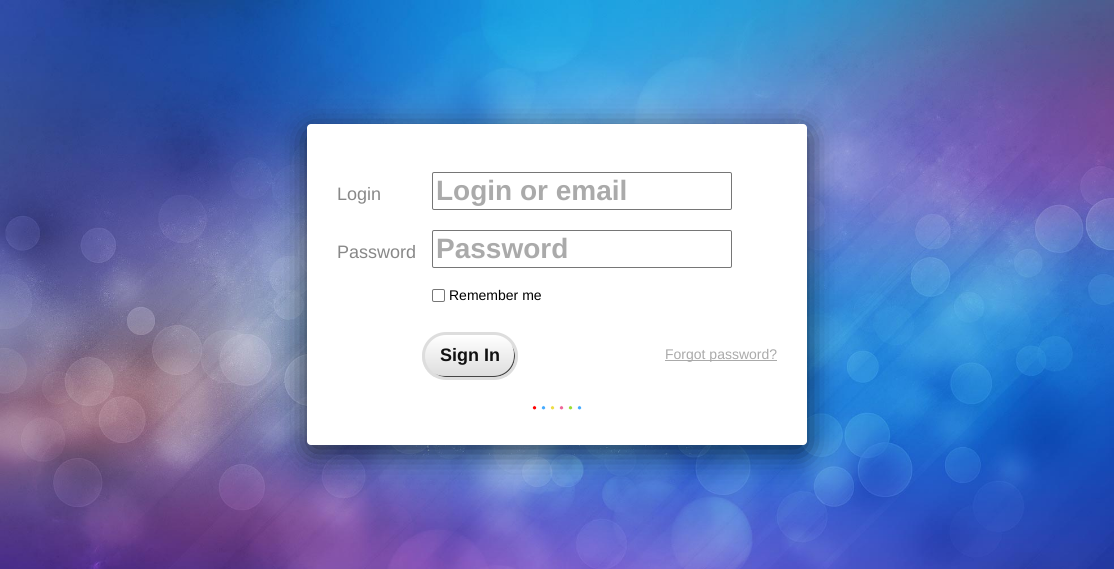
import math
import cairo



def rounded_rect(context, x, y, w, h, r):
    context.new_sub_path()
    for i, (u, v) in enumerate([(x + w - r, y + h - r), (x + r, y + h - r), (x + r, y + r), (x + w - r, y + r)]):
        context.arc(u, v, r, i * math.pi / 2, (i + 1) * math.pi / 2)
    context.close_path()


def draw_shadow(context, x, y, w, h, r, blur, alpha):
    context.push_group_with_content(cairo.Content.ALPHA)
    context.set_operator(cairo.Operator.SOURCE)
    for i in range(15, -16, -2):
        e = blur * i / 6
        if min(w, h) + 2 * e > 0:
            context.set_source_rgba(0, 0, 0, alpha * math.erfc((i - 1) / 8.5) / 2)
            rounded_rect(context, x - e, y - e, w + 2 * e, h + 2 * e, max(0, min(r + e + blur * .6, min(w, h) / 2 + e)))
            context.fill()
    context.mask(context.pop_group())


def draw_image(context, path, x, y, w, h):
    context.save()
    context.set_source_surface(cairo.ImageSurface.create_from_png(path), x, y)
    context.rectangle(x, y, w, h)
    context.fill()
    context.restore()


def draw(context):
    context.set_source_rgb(1, 1, 1)
    context.paint()
    draw_image(context, "images/1.png", 0, 0, 1114, 569)
    context.set_source_rgb(0, 0, 0)
    draw_shadow(context, 307, 131, 500, 321, 4, 15, 0.7)
    context.set_source_rgb(1, 1, 1)
    rounded_rect(context, 307, 124, 500, 321, 4)
    context.fill()
    rounded_rect(context, 432.5, 172.5, 299, 37, 1.5)
    context.set_source_rgb(118 / 255, 118 / 255, 118 / 255)
    context.set_line_width(1)
    context.stroke()
    rounded_rect(context, 432.5, 230.5, 299, 37, 1.5)
    context.stroke()
    rounded_rect(context, 432.5, 289.5, 12, 12, 1.5)
    context.stroke()
    context.save()
    rounded_rect(context, 422, 332, 96, 48, 24)
    context.clip()
    gradient = cairo.LinearGradient(470, 335, 470, 377)
    gradient.add_color_stop_rgba(0, 1, 1, 1, 1)
    gradient.add_color_stop_rgba(1, 221 / 255, 221 / 255, 221 / 255, 1)
    context.set_source(gradient)
    context.rectangle(422, 335, 96, 42)
    context.fill()
    context.restore()
    context.set_source_rgb(68 / 255, 68 / 255, 68 / 255)
    context.new_path()
    context.move_to(433, 372)
    context.curve_to(436, 375, 441, 377, 446, 377)
    context.line_to(494, 377)
    context.curve_to(506, 377, 515, 368, 515, 356)
    context.curve_to(515, 351, 513, 346, 510, 343)
    context.curve_to(513, 346, 514, 350, 514, 355)
    context.curve_to(514, 367, 505, 376, 493, 376)
    context.line_to(445, 376)
    context.curve_to(440, 376, 436, 375, 433, 372)
    context.close_path()
    context.fill()
    rounded_rect(context, 423.5, 333.5, 93, 45, 22.5)
    context.set_source_rgb(221 / 255, 221 / 255, 221 / 255)
    context.set_line_width(3)
    context.stroke()
    context.set_source_rgb(170 / 255, 170 / 255, 170 / 255)
    context.rectangle(665, 360, 112, 1)
    context.fill()
    draw_image(context, "images/2.png", 532, 405, 50, 5)
    context.select_font_face("Liberation Sans")
    context.set_font_size(18)
    context.set_source_rgb(136 / 255, 136 / 255, 136 / 255)
    context.move_to(337, 200)
    context.show_text("Login")
    context.select_font_face("Liberation Sans", cairo.FontSlant.NORMAL, cairo.FontWeight.BOLD)
    context.set_font_size(28)
    context.set_source_rgb(170 / 255, 170 / 255, 170 / 255)
    context.move_to(436, 200)
    context.show_text("Login or email")
    context.select_font_face("Liberation Sans")
    context.set_font_size(18)
    context.set_source_rgb(136 / 255, 136 / 255, 136 / 255)
    context.move_to(337, 258)
    context.show_text("Password")
    context.select_font_face("Liberation Sans", cairo.FontSlant.NORMAL, cairo.FontWeight.BOLD)
    context.set_font_size(28)
    context.set_source_rgb(170 / 255, 170 / 255, 170 / 255)
    context.move_to(436, 258)
    context.show_text("Password")
    context.select_font_face("Liberation Sans")
    context.set_font_size(14)
    context.set_source_rgb(0, 0, 0)
    context.move_to(449, 300)
    context.show_text("Remember me")
    context.select_font_face("Liberation Sans", cairo.FontSlant.NORMAL, cairo.FontWeight.BOLD)
    context.set_font_size(18)
    context.set_source_rgb(17 / 255, 17 / 255, 17 / 255)
    context.move_to(440, 361)
    context.show_text("Sign In")
    context.select_font_face("Liberation Sans")
    context.set_font_size(14)
    context.set_source_rgb(170 / 255, 170 / 255, 170 / 255)
    context.move_to(665, 359)
    context.show_text("Forgot password?")


surface = cairo.ImageSurface(cairo.Format.RGB24, 1114, 569)
context = cairo.Context(surface)
options = cairo.FontOptions()
options.set_hint_metrics(cairo.HintMetrics.OFF)
options.set_hint_style(cairo.HintStyle.NONE)
context.set_font_options(options)
context.set_miter_limit(4)
draw(context)
surface.write_to_png("out.png")
